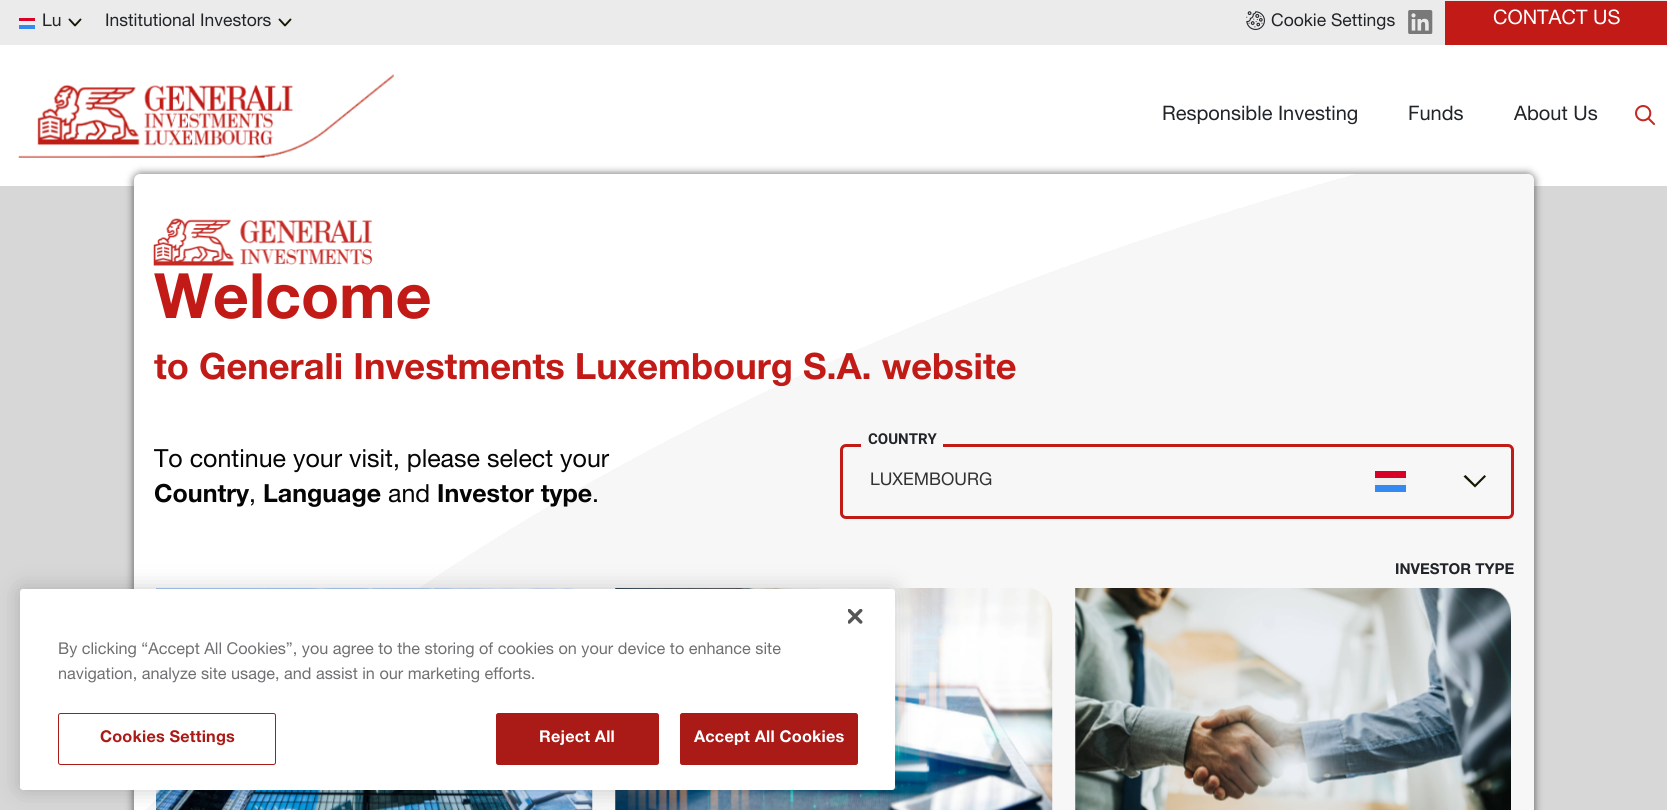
import math
import cairo



def draw_spaced(context, x, y, s, letter, word):
    context.move_to(x, y)
    for ch in s:
        context.show_text(ch)
        context.rel_move_to(letter + word * (ch == ' '), 0)


def rounded_rect(context, x, y, w, h, r):
    context.new_sub_path()
    for i, (u, v) in enumerate([(x + w - r, y + h - r), (x + r, y + h - r), (x + r, y + r), (x + w - r, y + r)]):
        context.arc(u, v, r, i * math.pi / 2, (i + 1) * math.pi / 2)
    context.close_path()


def draw_shadow(context, x, y, w, h, r, blur, alpha):
    context.push_group_with_content(cairo.Content.ALPHA)
    context.set_operator(cairo.Operator.SOURCE)
    for i in range(15, -16, -2):
        e = blur * i / 6
        if min(w, h) + 2 * e > 0:
            context.set_source_rgba(0, 0, 0, alpha * math.erfc((i - 1) / 8.5) / 2)
            rounded_rect(context, x - e, y - e, w + 2 * e, h + 2 * e, max(0, min(r + e + blur * .6, min(w, h) / 2 + e)))
            context.fill()
    context.mask(context.pop_group())


def draw_image(context, path, x, y, w, h):
    context.save()
    context.set_source_surface(cairo.ImageSurface.create_from_png(path), x, y)
    context.rectangle(x, y, w, h)
    context.fill()
    context.restore()


def draw(context):
    context.set_source_rgb(1, 1, 1)
    context.paint()
    context.set_source_rgb(235 / 255, 235 / 255, 235 / 255)
    context.rectangle(0, 0, 1667, 45)
    context.fill()
    draw_image(context, "images/1.png", 1246, 11, 19, 19)
    draw_image(context, "images/2.png", 1408, 10, 25, 24)
    context.set_source_rgb(194 / 255, 27 / 255, 23 / 255)
    context.rectangle(1445, 1, 222, 44)
    context.fill()
    context.set_source_rgb(240 / 255, 240 / 255, 240 / 255)
    context.rectangle(19, 21, 16, 4)
    context.fill()
    context.set_source_rgb(216 / 255, 0, 39 / 255)
    context.rectangle(19, 18, 16, 3)
    context.fill()
    context.set_source_rgb(51 / 255, 138 / 255, 243 / 255)
    context.rectangle(19, 25, 16, 4)
    context.fill()
    context.new_path()
    context.move_to(69.5, 19.5)
    context.line_to(75, 25.5)
    context.line_to(80.5, 19.5)
    context.set_source_rgb(22 / 255, 22 / 255, 2 / 255)
    context.set_line_width(1.9)
    context.set_line_cap(cairo.LineCap.ROUND)
    context.set_line_join(cairo.LineJoin.ROUND)
    context.stroke()
    context.new_path()
    context.move_to(279.5, 19.5)
    context.line_to(285, 25.5)
    context.line_to(290.5, 19.5)
    context.stroke()
    context.set_source_rgb(215 / 255, 215 / 255, 215 / 255)
    context.rectangle(0, 186, 1667, 624)
    context.fill()
    context.set_source_rgb(0, 0, 0)
    draw_shadow(context, 133, 173, 1402, 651, 8, 4, 0.5)
    gradient = cairo.RadialGradient(0, 0, 0, 0, 0, 1)
    gradient.set_matrix(cairo.Matrix(1 / 3663, 0, 0, 1 / 1936, -1 * 2724 / 3663, -1 * 1543 / 1936))
    gradient.add_color_stop_rgba(0.8, 247 / 255, 247 / 255, 247 / 255, 1)
    gradient.add_color_stop_rgba(0.8, 1, 1, 1, 1)
    context.set_source(gradient)
    rounded_rect(context, 134, 174, 1400, 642, 6)
    context.fill()
    draw_image(context, "images/3.png", 153, 218, 220, 48)
    rounded_rect(context, 841.5, 445.5, 671, 72, 4.5)
    context.set_source_rgb(194 / 255, 27 / 255, 23 / 255)
    context.set_line_width(3)
    context.set_line_cap(cairo.LineCap.BUTT)
    context.set_line_join(cairo.LineJoin.MITER)
    context.stroke()
    context.set_source_rgb(247 / 255, 247 / 255, 247 / 255)
    context.rectangle(861, 444, 82, 3)
    context.fill()
    context.set_source_rgb(240 / 255, 240 / 255, 240 / 255)
    context.rectangle(1375, 478, 31, 7)
    context.fill()
    context.set_source_rgb(216 / 255, 0, 39 / 255)
    context.rectangle(1375, 471, 31, 7)
    context.fill()
    context.set_source_rgb(51 / 255, 138 / 255, 243 / 255)
    context.rectangle(1375, 485, 31, 7)
    context.fill()
    context.set_source_rgb(22 / 255, 22 / 255, 2 / 255)
    context.set_fill_rule(cairo.FillRule.EVEN_ODD)
    context.new_path()
    context.move_to(1463.5, 476.5)
    context.line_to(1465.5, 475)
    context.line_to(1475, 484.5)
    context.line_to(1484.5, 475)
    context.line_to(1486, 476.5)
    context.line_to(1475, 487.5)
    context.close_path()
    context.fill()
    draw_image(context, "images/4.png", 156, 588, 437, 222)
    draw_image(context, "images/5.png", 615, 588, 438, 222)
    draw_image(context, "images/6.png", 1075, 588, 436, 222)
    draw_image(context, "images/7.png", 18, 74, 376, 84)
    draw_image(context, "images/8.png", 1635, 105, 20, 20)
    context.set_source_rgb(0, 0, 0)
    draw_shadow(context, 20, 589, 875, 201, 3, 11, 0.2)
    context.set_source_rgb(1, 1, 1)
    rounded_rect(context, 20, 589, 875, 201, 3)
    context.fill()
    draw_image(context, "images/9.png", 848, 609, 15, 15)
    rounded_rect(context, 58.5, 713.5, 217, 51, 2)
    context.set_source_rgb(170 / 255, 27 / 255, 23 / 255)
    context.set_line_width(1)
    context.stroke()
    rounded_rect(context, 496.5, 713.5, 162, 51, 2)
    context.fill_preserve()
    context.stroke()
    rounded_rect(context, 680.5, 713.5, 177, 51, 2)
    context.fill_preserve()
    context.stroke()
    context.select_font_face("Helvetica Neue")
    context.set_font_size(17.5)
    context.set_source_rgb(33 / 255, 37 / 255, 41 / 255)
    context.move_to(1271, 26)
    context.show_text("Cookie Settings")
    context.set_font_size(20)
    context.set_source_rgb(1, 1, 1)
    context.move_to(1493, 24)
    context.show_text("CONTACT US")
    context.set_font_size(17.5)
    context.set_source_rgb(33 / 255, 37 / 255, 41 / 255)
    context.move_to(42, 26)
    context.show_text("Lu")
    context.move_to(105, 26)
    context.show_text("Institutional Investors")
    context.select_font_face("Helvetica Neue", cairo.FontSlant.NORMAL, cairo.FontWeight.BOLD)
    context.set_font_size(62.5)
    context.set_source_rgb(194 / 255, 27 / 255, 23 / 255)
    context.move_to(154, 318)
    context.show_text("Welcome")
    context.set_font_size(36.25)
    context.move_to(154, 379)
    context.show_text("to Generali Investments Luxembourg S.A. website")
    context.select_font_face("Helvetica Neue")
    context.set_font_size(25)
    context.set_source_rgb(5 / 255, 5 / 255, 5 / 255)
    context.move_to(154, 467)
    context.show_text("To continue your visit, please select your")
    context.select_font_face("Helvetica Neue", cairo.FontSlant.NORMAL, cairo.FontWeight.BOLD)
    context.move_to(154, 502)
    context.show_text("Country")
    context.select_font_face("Helvetica Neue")
    context.move_to(249, 502)
    context.show_text(",")
    context.select_font_face("Helvetica Neue", cairo.FontSlant.NORMAL, cairo.FontWeight.BOLD)
    context.move_to(263, 502)
    context.show_text("Language")
    context.select_font_face("Helvetica Neue")
    context.move_to(388, 502)
    context.show_text("and")
    context.select_font_face("Helvetica Neue", cairo.FontSlant.NORMAL, cairo.FontWeight.BOLD)
    context.move_to(437, 502)
    context.show_text("Investor type")
    context.select_font_face("Helvetica Neue")
    context.move_to(592, 502)
    context.show_text(".")
    context.select_font_face("Roboto", cairo.FontSlant.NORMAL, cairo.FontWeight.BOLD)
    context.set_font_size(15)
    context.set_source_rgb(33 / 255, 37 / 255, 41 / 255)
    context.move_to(868, 444)
    context.show_text("COUNTRY")
    context.select_font_face("Helvetica Neue")
    context.set_font_size(17.5)
    context.set_source_rgb(51 / 255, 51 / 255, 51 / 255)
    context.move_to(870, 485)
    context.show_text("LUXEMBOURG")
    context.select_font_face("Helvetica Neue", cairo.FontSlant.NORMAL, cairo.FontWeight.BOLD)
    context.set_font_size(15)
    context.set_source_rgb(33 / 255, 37 / 255, 41 / 255)
    context.move_to(1395, 574)
    context.show_text("INVESTOR TYPE")
    context.select_font_face("Helvetica Neue")
    context.set_font_size(20)
    context.move_to(1162, 120)
    context.show_text("Responsible Investing")
    context.move_to(1408, 120)
    context.show_text("Funds")
    context.move_to(1514, 120)
    context.show_text("About Us")
    context.set_font_size(16.25)
    context.set_source_rgb(111 / 255, 112 / 255, 114 / 255)
    context.move_to(58, 654)
    context.show_text("By clicking “Accept All Cookies”, you agree to the storing of cookies on your device to enhance site")
    context.move_to(58, 679)
    context.show_text("navigation, analyze site usage, and assist in our marketing efforts.")
    context.select_font_face("Helvetica Neue", cairo.FontSlant.NORMAL, cairo.FontWeight.BOLD)
    context.set_source_rgb(170 / 255, 27 / 255, 23 / 255)
    draw_spaced(context, 100, 742, "Cookies Settings", 0.2, 0)
    context.set_source_rgb(1, 1, 1)
    draw_spaced(context, 539, 742, "Reject All", 0.2, 0)
    draw_spaced(context, 694, 742, "Accept All Cookies", 0.2, 0)


surface = cairo.ImageSurface(cairo.Format.RGB24, 1667, 810)
context = cairo.Context(surface)
options = cairo.FontOptions()
options.set_hint_metrics(cairo.HintMetrics.OFF)
options.set_hint_style(cairo.HintStyle.NONE)
context.set_font_options(options)
context.set_miter_limit(4)
draw(context)
surface.write_to_png("out.png")
